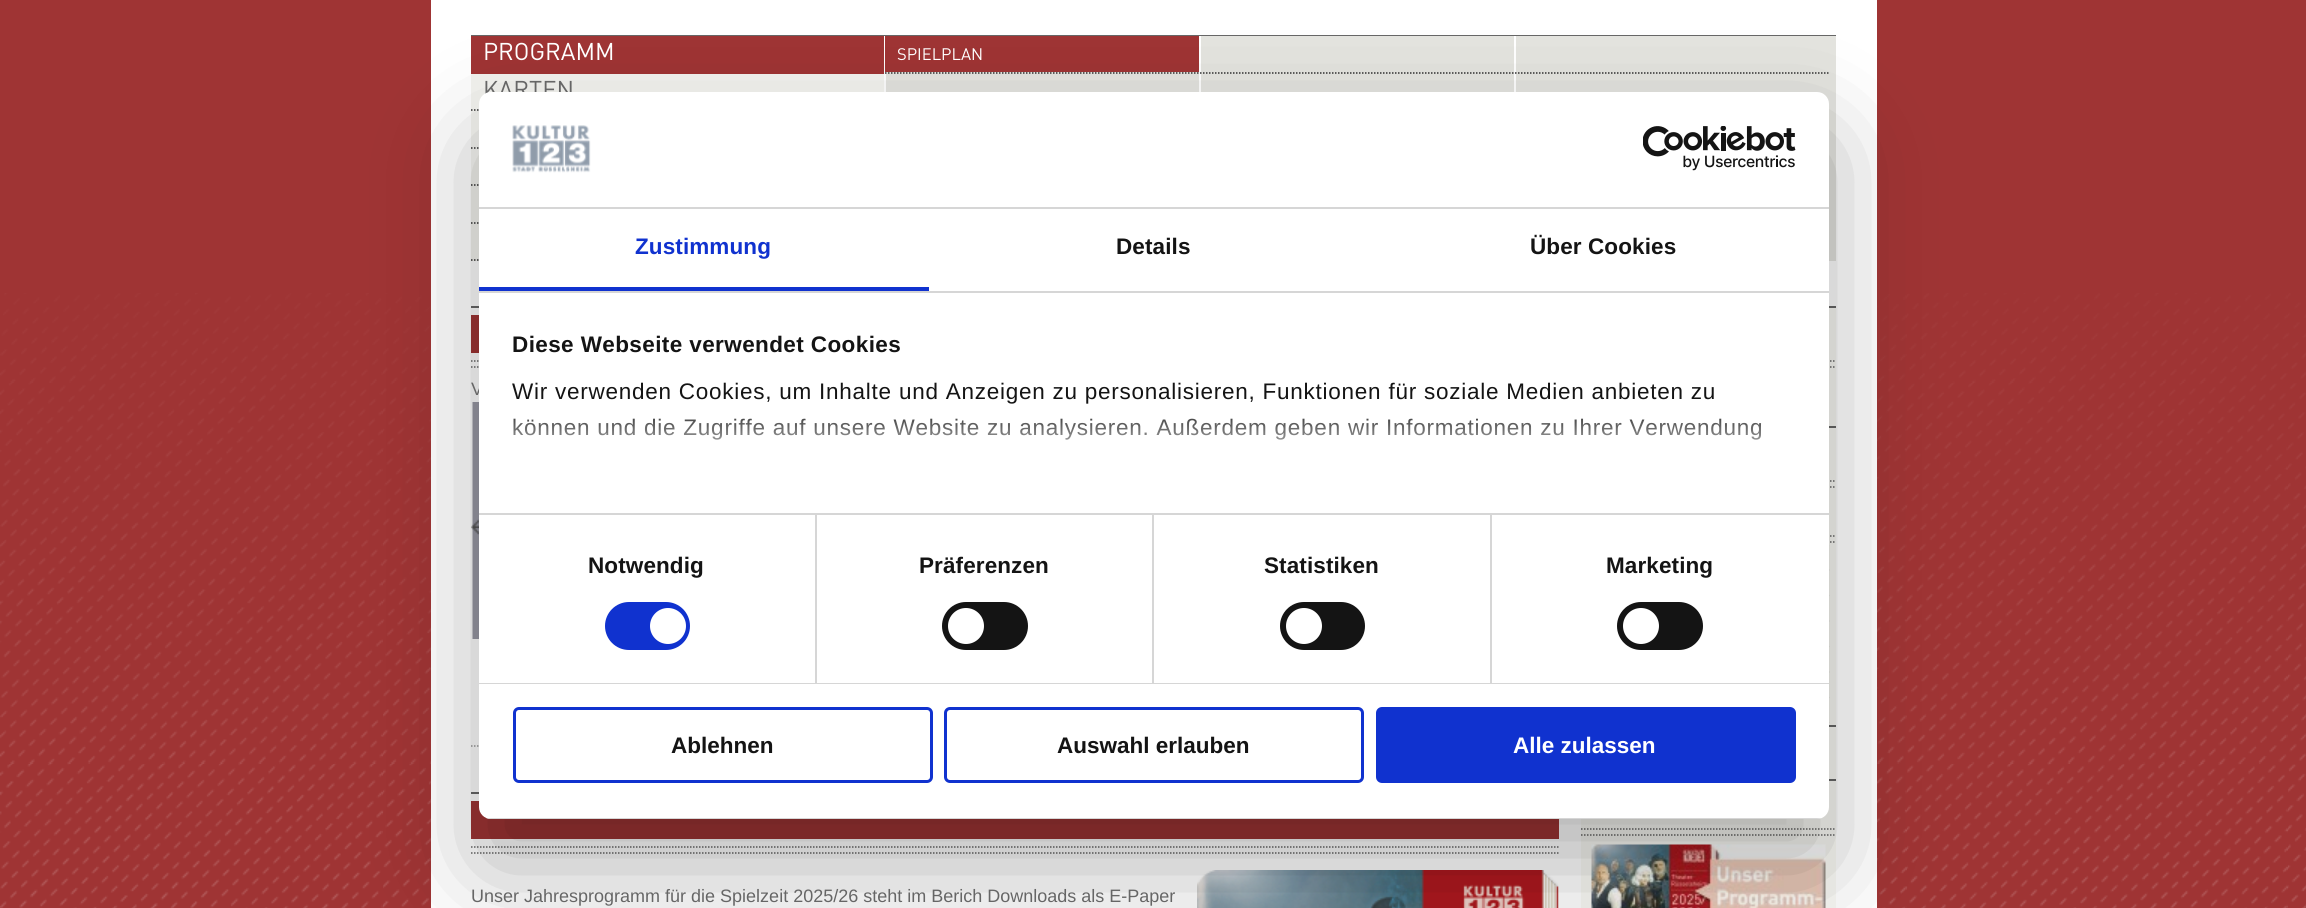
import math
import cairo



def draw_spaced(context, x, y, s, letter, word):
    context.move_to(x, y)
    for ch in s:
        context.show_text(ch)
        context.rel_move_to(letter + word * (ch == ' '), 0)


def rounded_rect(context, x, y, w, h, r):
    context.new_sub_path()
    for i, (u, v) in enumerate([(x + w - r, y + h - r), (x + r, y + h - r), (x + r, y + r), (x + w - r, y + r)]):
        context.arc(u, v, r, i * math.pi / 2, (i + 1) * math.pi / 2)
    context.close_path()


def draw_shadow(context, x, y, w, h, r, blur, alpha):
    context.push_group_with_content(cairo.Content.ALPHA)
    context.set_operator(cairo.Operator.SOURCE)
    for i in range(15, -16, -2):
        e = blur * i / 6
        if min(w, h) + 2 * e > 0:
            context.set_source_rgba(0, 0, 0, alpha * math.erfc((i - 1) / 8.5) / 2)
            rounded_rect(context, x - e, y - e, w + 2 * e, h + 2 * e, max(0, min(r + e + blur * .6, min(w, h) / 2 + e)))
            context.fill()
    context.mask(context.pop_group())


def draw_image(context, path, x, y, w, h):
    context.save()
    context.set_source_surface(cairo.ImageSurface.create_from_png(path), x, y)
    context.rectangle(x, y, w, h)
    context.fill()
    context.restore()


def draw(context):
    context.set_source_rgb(159 / 255, 52 / 255, 52 / 255)
    context.paint()
    draw_image(context, "images/1.png", 0, 293, 2306, 615)
    context.set_source_rgb(1, 1, 1)
    context.rectangle(431, 0, 1446, 908)
    context.fill()
    context.set_source_rgb(244 / 255, 244 / 255, 240 / 255)
    context.rectangle(471, 74, 413, 187)
    context.fill()
    context.set_source_rgb(102 / 255, 102 / 255, 102 / 255)
    context.rectangle(471, 35, 1365, 1)
    context.fill()
    context.set_source_rgb(159 / 255, 52 / 255, 52 / 255)
    context.rectangle(471, 36, 413, 38)
    context.fill()
    context.new_path()
    context.move_to(471, 110)
    context.line_to(1836, 110)
    context.set_source_rgb(51 / 255, 51 / 255, 51 / 255)
    context.set_line_width(1.5)
    context.set_dash([1.5, 1.5])
    context.stroke()
    context.new_path()
    context.move_to(471, 148)
    context.line_to(1836, 148)
    context.stroke()
    context.new_path()
    context.move_to(471, 185)
    context.line_to(1836, 185)
    context.stroke()
    context.new_path()
    context.move_to(471, 223)
    context.line_to(1836, 223)
    context.stroke()
    context.new_path()
    context.move_to(471, 260)
    context.line_to(1836, 260)
    context.stroke()
    context.set_source_rgb(228 / 255, 228 / 255, 223 / 255)
    context.rectangle(886, 36, 950, 225)
    context.fill()
    context.new_path()
    context.move_to(885, 73)
    context.line_to(1198.5, 73)
    context.set_source_rgb(51 / 255, 51 / 255, 51 / 255)
    context.stroke()
    context.set_source_rgb(159 / 255, 52 / 255, 52 / 255)
    context.rectangle(885, 36, 314, 36)
    context.fill()
    context.set_source_rgb(1, 1, 1)
    context.rectangle(1199, 36, 2, 56)
    context.fill()
    context.new_path()
    context.move_to(1200, 73)
    context.line_to(1513.5, 73)
    context.set_source_rgb(51 / 255, 51 / 255, 51 / 255)
    context.stroke()
    context.set_source_rgb(1, 1, 1)
    context.rectangle(1514, 36, 2, 56)
    context.fill()
    context.new_path()
    context.move_to(1515, 73)
    context.line_to(1828.5, 73)
    context.set_source_rgb(51 / 255, 51 / 255, 51 / 255)
    context.stroke()
    context.set_source_rgb(102 / 255, 102 / 255, 102 / 255)
    context.rectangle(471, 306, 8, 2)
    context.fill()
    context.set_source_rgb(159 / 255, 52 / 255, 52 / 255)
    context.rectangle(471, 315, 8, 38)
    context.fill()
    context.new_path()
    context.move_to(471, 361)
    context.line_to(1558.5, 361)
    context.set_source_rgb(102 / 255, 102 / 255, 102 / 255)
    context.stroke()
    context.new_path()
    context.move_to(471, 367)
    context.line_to(1558.5, 367)
    context.stroke()
    context.new_path()
    context.move_to(471, 746)
    context.line_to(1558.5, 746)
    context.set_source_rgb(153 / 255, 153 / 255, 153 / 255)
    context.stroke()
    draw_image(context, "images/3.png", 472, 402, 7, 237)
    context.set_source_rgba(1, 1, 1, 0.6)
    context.rectangle(472, 401, 7, 238)
    context.fill()
    draw_image(context, "images/2.png", 471, 519, 8, 16)
    context.set_source_rgb(102 / 255, 102 / 255, 102 / 255)
    context.rectangle(471, 792, 8, 2)
    context.fill()
    context.set_source_rgb(159 / 255, 52 / 255, 52 / 255)
    context.rectangle(471, 801, 1088, 38)
    context.fill()
    context.new_path()
    context.move_to(471, 847)
    context.line_to(1558.5, 847)
    context.set_source_rgb(102 / 255, 102 / 255, 102 / 255)
    context.stroke()
    context.new_path()
    context.move_to(471, 853)
    context.line_to(1558.5, 853)
    context.stroke()
    draw_image(context, "images/4.png", 1197, 870, 362, 38)
    context.set_source_rgb(249 / 255, 249 / 255, 244 / 255)
    context.rectangle(1581, 308, 255, 600)
    context.fill()
    context.set_source_rgb(102 / 255, 102 / 255, 102 / 255)
    context.rectangle(1829, 306, 7, 2)
    context.fill()
    context.new_path()
    context.move_to(1581, 361)
    context.line_to(1836, 361)
    context.stroke()
    context.new_path()
    context.move_to(1581, 367)
    context.line_to(1836, 367)
    context.stroke()
    context.rectangle(1829, 426, 7, 2)
    context.fill()
    context.new_path()
    context.move_to(1581, 481)
    context.line_to(1836, 481)
    context.stroke()
    context.new_path()
    context.move_to(1581, 487)
    context.line_to(1836, 487)
    context.stroke()
    context.new_path()
    context.move_to(1581, 536)
    context.line_to(1836, 536)
    context.stroke()
    context.new_path()
    context.move_to(1581, 542)
    context.line_to(1836, 542)
    context.stroke()
    context.rectangle(1829, 725, 7, 2)
    context.fill()
    context.set_source_rgb(232 / 255, 232 / 255, 227 / 255)
    context.rectangle(1829, 545, 1, 178)
    context.fill()
    context.set_source_rgb(246 / 255, 246 / 255, 240 / 255)
    context.new_path()
    context.move_to(1830, 570)
    context.line_to(1830, 595.5)
    context.line_to(1828.5, 594)
    context.line_to(1828.5, 571.5)
    context.close_path()
    context.fill()
    context.new_path()
    context.move_to(1830, 544.5)
    context.line_to(1830, 570)
    context.line_to(1828.5, 568.5)
    context.line_to(1828.5, 546)
    context.close_path()
    context.fill()
    context.new_path()
    context.move_to(1830, 595.5)
    context.line_to(1830, 621)
    context.line_to(1828.5, 619.5)
    context.line_to(1828.5, 597)
    context.close_path()
    context.move_to(1830, 621)
    context.line_to(1830, 646.5)
    context.line_to(1828.5, 645)
    context.line_to(1828.5, 622.5)
    context.close_path()
    context.fill()
    context.new_path()
    context.move_to(1830, 646.5)
    context.line_to(1830, 672)
    context.line_to(1828.5, 670.5)
    context.line_to(1828.5, 648)
    context.close_path()
    context.move_to(1830, 672)
    context.line_to(1830, 697.5)
    context.line_to(1828.5, 696)
    context.line_to(1828.5, 673.5)
    context.close_path()
    context.fill()
    context.new_path()
    context.move_to(1830, 697.5)
    context.line_to(1830, 723)
    context.line_to(1828.5, 721.5)
    context.line_to(1828.5, 699)
    context.close_path()
    context.fill()
    context.set_source_rgb(102 / 255, 102 / 255, 102 / 255)
    context.rectangle(1829, 779, 7, 2)
    context.fill()
    context.new_path()
    context.move_to(1581, 829)
    context.line_to(1836, 829)
    context.stroke()
    context.new_path()
    context.move_to(1581, 835)
    context.line_to(1836, 835)
    context.stroke()
    draw_image(context, "images/5.png", 1591, 844, 235, 64)
    context.set_source_rgb(0, 0, 0)
    draw_shadow(context, 479, 140, 1350, 727, 12, 51, 0.3)
    context.select_font_face("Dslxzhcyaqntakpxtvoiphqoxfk")
    context.set_font_size(24)
    context.set_source_rgb(1, 1, 1)
    context.move_to(483, 60)
    context.show_text("PROGRAMM")
    context.set_source_rgb(102 / 255, 102 / 255, 102 / 255)
    context.move_to(483, 98)
    context.show_text("KARTEN")
    context.set_font_size(16.5)
    context.set_source_rgb(1, 1, 1)
    context.move_to(897, 60)
    context.show_text("SPIELPLAN")
    context.select_font_face("Liberation Sans")
    context.set_font_size(18)
    context.set_source_rgb(102 / 255, 102 / 255, 102 / 255)
    context.move_to(471, 395)
    context.show_text("V")
    context.move_to(471, 902)
    context.show_text("Unser Jahresprogramm für die Spielzeit 2025/26 steht im Berich Downloads als E-Paper")
    context.set_source_rgb(1, 1, 1)
    rounded_rect(context, 479, 92, 1350, 727, 12)
    context.fill()
    context.set_source_rgb(214 / 255, 214 / 255, 214 / 255)
    context.rectangle(479, 207, 1350, 2)
    context.fill()
    draw_image(context, "images/6.png", 512, 125, 79, 48)
    draw_image(context, "images/7.png", 1643, 126, 153, 45)
    context.rectangle(479, 291, 1350, 2)
    context.fill()
    context.set_source_rgb(16 / 255, 50 / 255, 207 / 255)
    context.rectangle(479, 287, 450, 4)
    context.fill()
    context.select_font_face("Liberation Sans", cairo.FontSlant.NORMAL, cairo.FontWeight.BOLD)
    context.set_font_size(22.5)
    draw_spaced(context, 635, 254, "Zustimmung", 0.1, 0)
    context.set_source_rgb(20 / 255, 20 / 255, 20 / 255)
    draw_spaced(context, 1116, 254, "Details", 0.1, 0)
    draw_spaced(context, 1530, 254, "Über Cookies", 0.1, 0)
    context.set_source_rgb(214 / 255, 214 / 255, 214 / 255)
    context.rectangle(479, 513, 1350, 2)
    context.fill()
    context.set_source_rgb(20 / 255, 20 / 255, 20 / 255)
    draw_spaced(context, 512, 352, "Diese Webseite verwendet Cookies", 0.4, 0)
    context.select_font_face("Liberation Sans")
    draw_spaced(context, 512, 399, "Wir verwenden Cookies, um Inhalte und Anzeigen zu personalisieren, Funktionen für soziale Medien anbieten zu", 0.75, 0)
    draw_spaced(context, 512, 435, "können und die Zugriffe auf unsere Website zu analysieren. Außerdem geben wir Informationen zu Ihrer Verwendung", 0.75, 0)
    gradient = cairo.LinearGradient(1139, 512, 1139, 403)
    gradient.add_color_stop_rgba(0, 1, 1, 1, 1)
    gradient.add_color_stop_rgba(0.5, 1, 1, 1, 0.8)
    gradient.add_color_stop_rgba(1, 1, 1, 1, 0)
    context.set_source(gradient)
    context.rectangle(513, 418, 1249, 22)
    context.fill()
    context.set_source_rgb(214 / 255, 214 / 255, 214 / 255)
    context.rectangle(479, 683, 1350, 1)
    context.fill()
    context.rectangle(815, 515, 2, 168)
    context.fill()
    context.select_font_face("Liberation Sans", cairo.FontSlant.NORMAL, cairo.FontWeight.BOLD)
    context.set_source_rgb(20 / 255, 20 / 255, 20 / 255)
    draw_spaced(context, 588, 573, "Notwendig", 0.1, 0)
    context.set_source_rgb(16 / 255, 50 / 255, 207 / 255)
    rounded_rect(context, 605, 602, 85, 48, 24)
    context.fill()
    context.set_source_rgb(1, 1, 1)
    context.arc(668, 626, 18, 0, 2 * math.pi)
    context.fill()
    context.set_source_rgb(214 / 255, 214 / 255, 214 / 255)
    context.rectangle(1152, 515, 2, 168)
    context.fill()
    context.set_source_rgb(20 / 255, 20 / 255, 20 / 255)
    draw_spaced(context, 919, 573, "Präferenzen", 0.1, 0)
    rounded_rect(context, 942, 602, 86, 48, 24)
    context.fill()
    context.set_source_rgb(1, 1, 1)
    context.arc(966, 626, 18, 0, 2 * math.pi)
    context.fill()
    context.set_source_rgb(214 / 255, 214 / 255, 214 / 255)
    context.rectangle(1490, 515, 2, 168)
    context.fill()
    context.set_source_rgb(20 / 255, 20 / 255, 20 / 255)
    draw_spaced(context, 1264, 573, "Statistiken", 0.1, 0)
    rounded_rect(context, 1280, 602, 85, 48, 24)
    context.fill()
    context.set_source_rgb(1, 1, 1)
    context.arc(1304, 626, 18, 0, 2 * math.pi)
    context.fill()
    context.set_source_rgb(20 / 255, 20 / 255, 20 / 255)
    draw_spaced(context, 1606, 573, "Marketing", 0.1, 0)
    rounded_rect(context, 1617, 602, 86, 48, 24)
    context.fill()
    context.set_source_rgb(1, 1, 1)
    context.arc(1641, 626, 18, 0, 2 * math.pi)
    context.fill()
    context.save()
    rounded_rect(context, 479, 92, 1350, 727, 12)
    context.clip()
    context.set_source_rgb(214 / 255, 214 / 255, 214 / 255)
    context.rectangle(479, 818, 1350, 1)
    context.fill()
    context.restore()
    rounded_rect(context, 514.5, 708.5, 417, 73, 4.5)
    context.set_source_rgb(16 / 255, 50 / 255, 207 / 255)
    context.set_line_width(3)
    context.set_dash([])
    context.stroke()
    context.set_source_rgb(20 / 255, 20 / 255, 20 / 255)
    context.move_to(671, 753)
    context.show_text("Ablehnen")
    rounded_rect(context, 945.5, 708.5, 417, 73, 4.5)
    context.set_source_rgb(16 / 255, 50 / 255, 207 / 255)
    context.stroke()
    context.set_source_rgb(20 / 255, 20 / 255, 20 / 255)
    context.move_to(1057, 753)
    context.show_text("Auswahl erlauben")
    context.set_source_rgb(16 / 255, 50 / 255, 207 / 255)
    rounded_rect(context, 1377.5, 708.5, 417, 73, 4.5)
    context.fill_preserve()
    context.stroke()
    context.set_source_rgb(1, 1, 1)
    context.move_to(1513, 753)
    context.show_text("Alle zulassen")


surface = cairo.ImageSurface(cairo.Format.RGB24, 2306, 908)
context = cairo.Context(surface)
options = cairo.FontOptions()
options.set_hint_metrics(cairo.HintMetrics.OFF)
options.set_hint_style(cairo.HintStyle.NONE)
context.set_font_options(options)
context.set_miter_limit(4)
draw(context)
surface.write_to_png("out.png")
